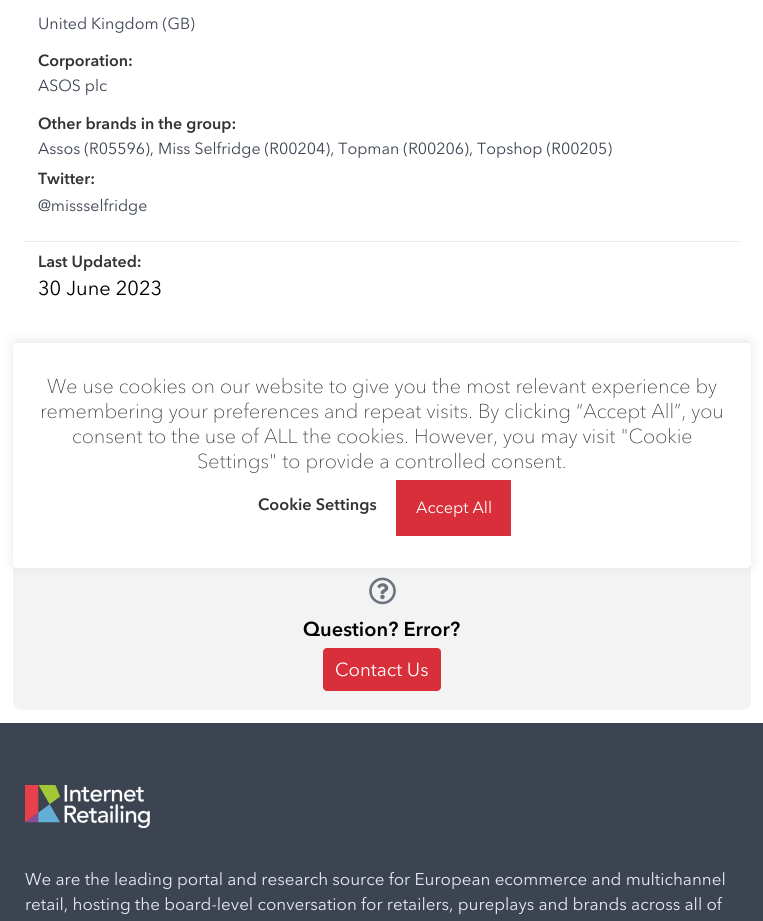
import math
import cairo



def rounded_rect(context, x, y, w, h, r):
    context.new_sub_path()
    for i, (u, v) in enumerate([(x + w - r, y + h - r), (x + r, y + h - r), (x + r, y + r), (x + w - r, y + r)]):
        context.arc(u, v, r, i * math.pi / 2, (i + 1) * math.pi / 2)
    context.close_path()


def draw_shadow(context, x, y, w, h, r, blur, alpha):
    context.push_group_with_content(cairo.Content.ALPHA)
    context.set_operator(cairo.Operator.SOURCE)
    for i in range(15, -16, -2):
        e = blur * i / 6
        if min(w, h) + 2 * e > 0:
            context.set_source_rgba(0, 0, 0, alpha * math.erfc((i - 1) / 8.5) / 2)
            rounded_rect(context, x - e, y - e, w + 2 * e, h + 2 * e, max(0, min(r + e + blur * .6, min(w, h) / 2 + e)))
            context.fill()
    context.mask(context.pop_group())


def draw_image(context, path, x, y, w, h):
    context.save()
    context.set_source_surface(cairo.ImageSurface.create_from_png(path), x, y)
    context.rectangle(x, y, w, h)
    context.fill()
    context.restore()


def draw(context):
    context.set_source_rgb(1, 1, 1)
    context.paint()
    context.set_source_rgb(229 / 255, 233 / 255, 238 / 255)
    context.rectangle(25, 241, 714, 1)
    context.fill()
    context.set_source_rgb(243 / 255, 243 / 255, 243 / 255)
    rounded_rect(context, 13, 559, 738, 151, 8)
    context.fill()
    draw_image(context, "images/1.png", 369, 577, 27, 28)
    context.set_source_rgb(217 / 255, 47 / 255, 58 / 255)
    rounded_rect(context, 323, 648, 118, 43, 4)
    context.fill()
    context.set_source_rgb(172 / 255, 171 / 255, 171 / 255)
    draw_shadow(context, 13, 341, 738, 225, 4, 6, 0.3)
    context.set_source_rgb(1, 1, 1)
    rounded_rect(context, 13, 343, 738, 225, 4)
    context.fill()
    context.set_source_rgb(217 / 255, 47 / 255, 58 / 255)
    context.rectangle(396, 480, 115, 56)
    context.fill()
    context.set_source_rgb(61 / 255, 68 / 255, 81 / 255)
    context.rectangle(0, 723, 763, 198)
    context.fill()
    draw_image(context, "images/2.png", 25, 785, 125, 43)
    context.select_font_face("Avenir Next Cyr")
    context.set_font_size(16)
    context.move_to(38, 29)
    context.show_text("United Kingdom (GB)")
    context.select_font_face("Avenir Next Cyr", cairo.FontSlant.NORMAL, cairo.FontWeight.BOLD)
    context.set_source_rgb(51 / 255, 51 / 255, 51 / 255)
    context.move_to(38, 66)
    context.show_text("Corporation:")
    context.select_font_face("Avenir Next Cyr")
    context.set_source_rgb(61 / 255, 68 / 255, 81 / 255)
    context.move_to(38, 91)
    context.show_text("ASOS plc")
    context.select_font_face("Avenir Next Cyr", cairo.FontSlant.NORMAL, cairo.FontWeight.BOLD)
    context.set_source_rgb(51 / 255, 51 / 255, 51 / 255)
    context.move_to(38, 129)
    context.show_text("Other brands in the group:")
    context.select_font_face("Avenir Next Cyr")
    context.set_source_rgb(61 / 255, 68 / 255, 81 / 255)
    context.move_to(38, 154)
    context.show_text("Assos (R05596), Miss Selfridge (R00204), Topman (R00206), Topshop (R00205)")
    context.select_font_face("Avenir Next Cyr", cairo.FontSlant.NORMAL, cairo.FontWeight.BOLD)
    context.set_source_rgb(51 / 255, 51 / 255, 51 / 255)
    context.move_to(38, 184)
    context.show_text("Twitter:")
    context.select_font_face("Avenir Next Cyr")
    context.set_source_rgb(61 / 255, 68 / 255, 81 / 255)
    context.move_to(38, 211)
    context.show_text("@missselfridge")
    context.select_font_face("Avenir Next Cyr", cairo.FontSlant.NORMAL, cairo.FontWeight.BOLD)
    context.set_source_rgb(51 / 255, 51 / 255, 51 / 255)
    context.move_to(38, 267)
    context.show_text("Last Updated:")
    context.select_font_face("Avenir Next Cyr")
    context.set_font_size(20)
    context.set_source_rgb(0, 0, 0)
    context.move_to(38, 295)
    context.show_text("30 June 2023")
    context.select_font_face("Avenir Next Cyr", cairo.FontSlant.NORMAL, cairo.FontWeight.BOLD)
    context.move_to(303, 636)
    context.show_text("Question? Error?")
    context.select_font_face("Avenir Next Cyr")
    context.set_font_size(18.75)
    context.set_source_rgb(1, 1, 1)
    context.move_to(335, 676)
    context.show_text("Contact Us")
    context.select_font_face("Avenir Next Cyr Thin")
    context.set_font_size(20)
    context.set_source_rgb(51 / 255, 51 / 255, 51 / 255)
    context.move_to(47, 393)
    context.show_text("We use cookies on our website to give you the most relevant experience by")
    context.move_to(40, 418)
    context.show_text("remembering your preferences and repeat visits. By clicking “Accept All”, you")
    context.move_to(72, 443)
    context.show_text("consent to the use of ALL the cookies. However, you may visit \"Cookie")
    context.move_to(197, 468)
    context.show_text("Settings\" to provide a controlled consent.")
    context.select_font_face("Avenir Next Cyr", cairo.FontSlant.NORMAL, cairo.FontWeight.BOLD)
    context.set_font_size(16.25)
    context.move_to(258, 510)
    context.show_text("Cookie Settings")
    context.select_font_face("Avenir Next Cyr")
    context.set_source_rgb(1, 1, 1)
    context.move_to(416, 513)
    context.show_text("Accept All")
    context.set_font_size(17)
    context.set_source_rgb(229 / 255, 233 / 255, 238 / 255)
    context.move_to(25, 885)
    context.show_text("We are the leading portal and research source for European ecommerce and multichannel")
    context.move_to(25, 910)
    context.show_text("retail, hosting the board-level conversation for retailers, pureplays and brands across all of")


surface = cairo.ImageSurface(cairo.Format.RGB24, 763, 921)
context = cairo.Context(surface)
options = cairo.FontOptions()
options.set_hint_metrics(cairo.HintMetrics.OFF)
options.set_hint_style(cairo.HintStyle.NONE)
context.set_font_options(options)
context.set_miter_limit(4)
draw(context)
surface.write_to_png("out.png")
